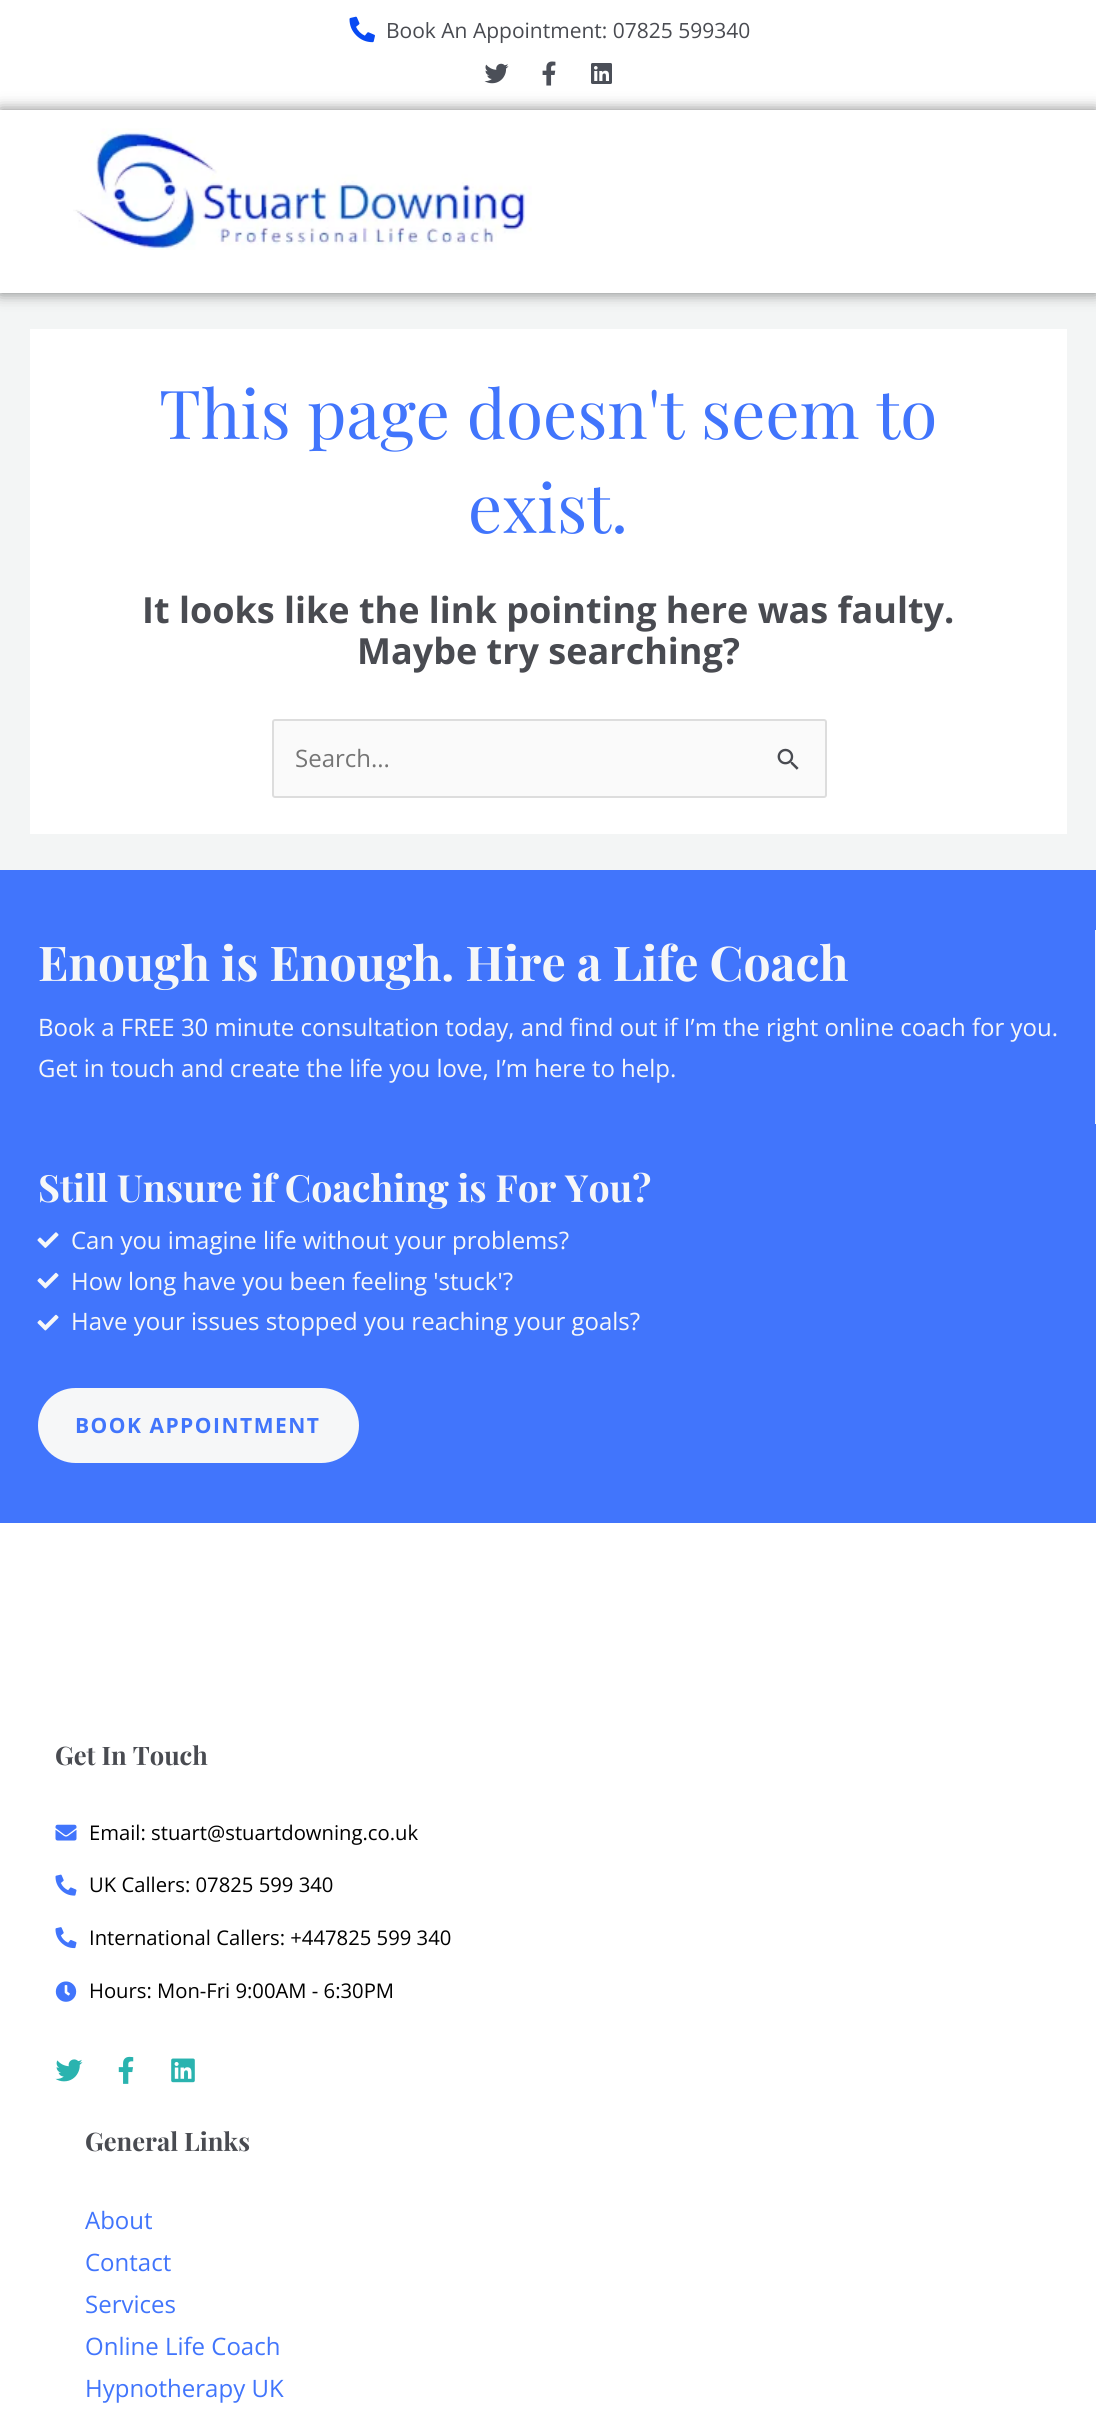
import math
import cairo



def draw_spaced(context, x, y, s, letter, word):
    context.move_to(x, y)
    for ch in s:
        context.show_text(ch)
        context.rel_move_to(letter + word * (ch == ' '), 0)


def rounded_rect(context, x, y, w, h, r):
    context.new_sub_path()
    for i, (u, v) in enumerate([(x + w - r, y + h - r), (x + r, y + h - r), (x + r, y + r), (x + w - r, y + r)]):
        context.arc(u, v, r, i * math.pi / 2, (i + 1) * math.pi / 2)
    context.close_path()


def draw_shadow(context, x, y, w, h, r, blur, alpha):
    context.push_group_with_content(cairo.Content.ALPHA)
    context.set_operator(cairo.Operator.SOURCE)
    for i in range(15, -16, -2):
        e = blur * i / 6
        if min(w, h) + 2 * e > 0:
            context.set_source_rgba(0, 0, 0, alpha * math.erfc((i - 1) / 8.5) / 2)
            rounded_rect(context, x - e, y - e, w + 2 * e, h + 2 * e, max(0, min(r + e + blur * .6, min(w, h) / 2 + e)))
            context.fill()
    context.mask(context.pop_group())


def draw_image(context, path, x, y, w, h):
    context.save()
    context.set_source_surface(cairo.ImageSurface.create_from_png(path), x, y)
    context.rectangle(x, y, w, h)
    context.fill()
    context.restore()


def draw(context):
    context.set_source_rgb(243 / 255, 245 / 255, 245 / 255)
    context.paint()
    context.set_source_rgb(1, 1, 1)
    context.rectangle(0, 0, 1096, 110)
    context.fill()
    draw_image(context, "images/1.png", 349, 16, 26, 27)
    draw_image(context, "images/2.png", 484, 63, 25, 21)
    draw_image(context, "images/3.png", 542, 61, 14, 25)
    draw_image(context, "images/4.png", 591, 63, 21, 21)
    context.set_source_rgb(0, 0, 0)
    draw_shadow(context, 0, 110, 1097, 183, 0, 7.5, 0.5)
    context.set_source_rgb(1, 1, 1)
    context.rectangle(0, 110, 1096, 183)
    context.fill()
    draw_image(context, "images/5.png", 73, 128, 459, 122)
    context.rectangle(30, 329, 1037, 505)
    context.fill()
    context.set_source_rgb(250 / 255, 250 / 255, 250 / 255)
    rounded_rect(context, 273, 720, 553, 77, 2)
    context.fill_preserve()
    context.set_source_rgb(221 / 255, 221 / 255, 221 / 255)
    context.stroke()
    draw_image(context, "images/6.png", 777, 748, 22, 22)
    context.set_source_rgb(65 / 255, 117 / 255, 252 / 255)
    context.rectangle(0, 870, 1096, 653)
    context.fill()
    context.set_source_rgb(246 / 255, 247 / 255, 248 / 255)
    context.rectangle(1095, 930, 1, 194)
    context.fill()
    draw_image(context, "images/7.png", 37, 1232, 22, 16)
    draw_image(context, "images/8.png", 37, 1272, 22, 17)
    draw_image(context, "images/8.png", 37, 1314, 22, 17)
    rounded_rect(context, 38, 1388, 321, 75, 37.5)
    context.fill()
    context.set_source_rgb(1, 1, 1)
    context.rectangle(0, 1523, 1096, 897)
    context.fill()
    draw_image(context, "images/9.png", 55, 1824, 22, 17)
    draw_image(context, "images/10.png", 55, 1874, 22, 22)
    draw_image(context, "images/11.png", 55, 1927, 22, 22)
    draw_image(context, "images/12.png", 55, 1981, 22, 21)
    draw_image(context, "images/13.png", 55, 2059, 28, 23)
    draw_image(context, "images/14.png", 118, 2056, 16, 28)
    draw_image(context, "images/15.png", 171, 2058, 24, 25)
    context.select_font_face("Open Sans")
    context.set_font_size(21)
    context.set_source_rgb(73 / 255, 75 / 255, 81 / 255)
    context.move_to(386, 38)
    context.show_text("Book An Appointment: 07825 599340")
    context.select_font_face("Playfair Display")
    context.set_font_size(67.5)
    context.set_source_rgb(65 / 255, 117 / 255, 252 / 255)
    context.move_to(159, 439)
    context.show_text("This page doesn't seem to")
    context.move_to(468, 533)
    context.show_text("exist.")
    context.select_font_face("Open Sans", cairo.FontSlant.NORMAL, cairo.FontWeight.BOLD)
    context.set_font_size(36)
    context.set_source_rgb(73 / 255, 75 / 255, 81 / 255)
    context.move_to(142, 623)
    context.show_text("It looks like the link pointing here was faulty.")
    context.move_to(357, 664)
    context.show_text("Maybe try searching?")
    context.select_font_face("Open Sans")
    context.set_font_size(24)
    context.set_source_rgb(117 / 255, 117 / 255, 117 / 255)
    context.move_to(295, 767)
    context.show_text("Search...")
    context.select_font_face("Playfair Display", cairo.FontSlant.NORMAL, cairo.FontWeight.BOLD)
    context.set_font_size(48)
    context.set_source_rgb(246 / 255, 247 / 255, 248 / 255)
    context.move_to(38, 981)
    context.show_text("Enough is Enough. Hire a Life Coach")
    context.select_font_face("Open Sans")
    context.set_font_size(24)
    context.move_to(38, 1036)
    context.show_text("Book a FREE 30 minute consultation today, and find out if I’m the right online coach for you.")
    context.move_to(38, 1077)
    context.show_text("Get in touch and create the life you love, I’m here to help.")
    context.select_font_face("Playfair Display", cairo.FontSlant.NORMAL, cairo.FontWeight.BOLD)
    context.set_font_size(37.5)
    context.move_to(38, 1202)
    context.show_text("Still Unsure if Coaching is For You?")
    context.select_font_face("Open Sans")
    context.set_font_size(24)
    context.move_to(71, 1249)
    context.show_text("Can you imagine life without your problems?")
    context.move_to(71, 1290)
    context.show_text("How long have you been feeling 'stuck'?")
    context.move_to(71, 1330)
    context.show_text("Have your issues stopped you reaching your goals?")
    context.select_font_face("Open Sans", cairo.FontSlant.NORMAL, cairo.FontWeight.BOLD)
    context.set_font_size(21)
    context.set_source_rgb(65 / 255, 117 / 255, 252 / 255)
    draw_spaced(context, 75, 1433, "BOOK APPOINTMENT", 1.5, 0)
    context.select_font_face("Playfair Display", cairo.FontSlant.NORMAL, cairo.FontWeight.BOLD)
    context.set_font_size(25.5)
    context.set_source_rgb(73 / 255, 75 / 255, 81 / 255)
    context.move_to(55, 1765)
    context.show_text("Get In Touch")
    context.select_font_face("Open Sans")
    context.set_font_size(20.25)
    context.set_source_rgb(0, 0, 0)
    context.move_to(89, 1840)
    context.show_text("Email: stuart@stuartdowning.co.uk")
    context.move_to(89, 1892)
    context.show_text("UK Callers: 07825 599 340")
    context.move_to(89, 1945)
    context.show_text("International Callers: +447825 599 340")
    context.move_to(89, 1998)
    context.show_text("Hours: Mon-Fri 9:00AM - 6:30PM")
    context.select_font_face("Playfair Display", cairo.FontSlant.NORMAL, cairo.FontWeight.BOLD)
    context.set_font_size(25.5)
    context.set_source_rgb(73 / 255, 75 / 255, 81 / 255)
    context.move_to(85, 2151)
    context.show_text("General Links")
    context.select_font_face("Open Sans")
    context.set_font_size(24)
    context.set_source_rgb(65 / 255, 117 / 255, 252 / 255)
    context.move_to(85, 2229)
    context.show_text("About")
    context.move_to(85, 2271)
    context.show_text("Contact")
    context.move_to(85, 2313)
    context.show_text("Services")
    context.move_to(85, 2355)
    context.show_text("Online Life Coach")
    context.move_to(85, 2397)
    context.show_text("Hypnotherapy UK")


surface = cairo.ImageSurface(cairo.Format.RGB24, 1096, 2420)
context = cairo.Context(surface)
options = cairo.FontOptions()
options.set_hint_metrics(cairo.HintMetrics.OFF)
options.set_hint_style(cairo.HintStyle.NONE)
context.set_font_options(options)
context.set_miter_limit(4)
draw(context)
surface.write_to_png("out.png")
